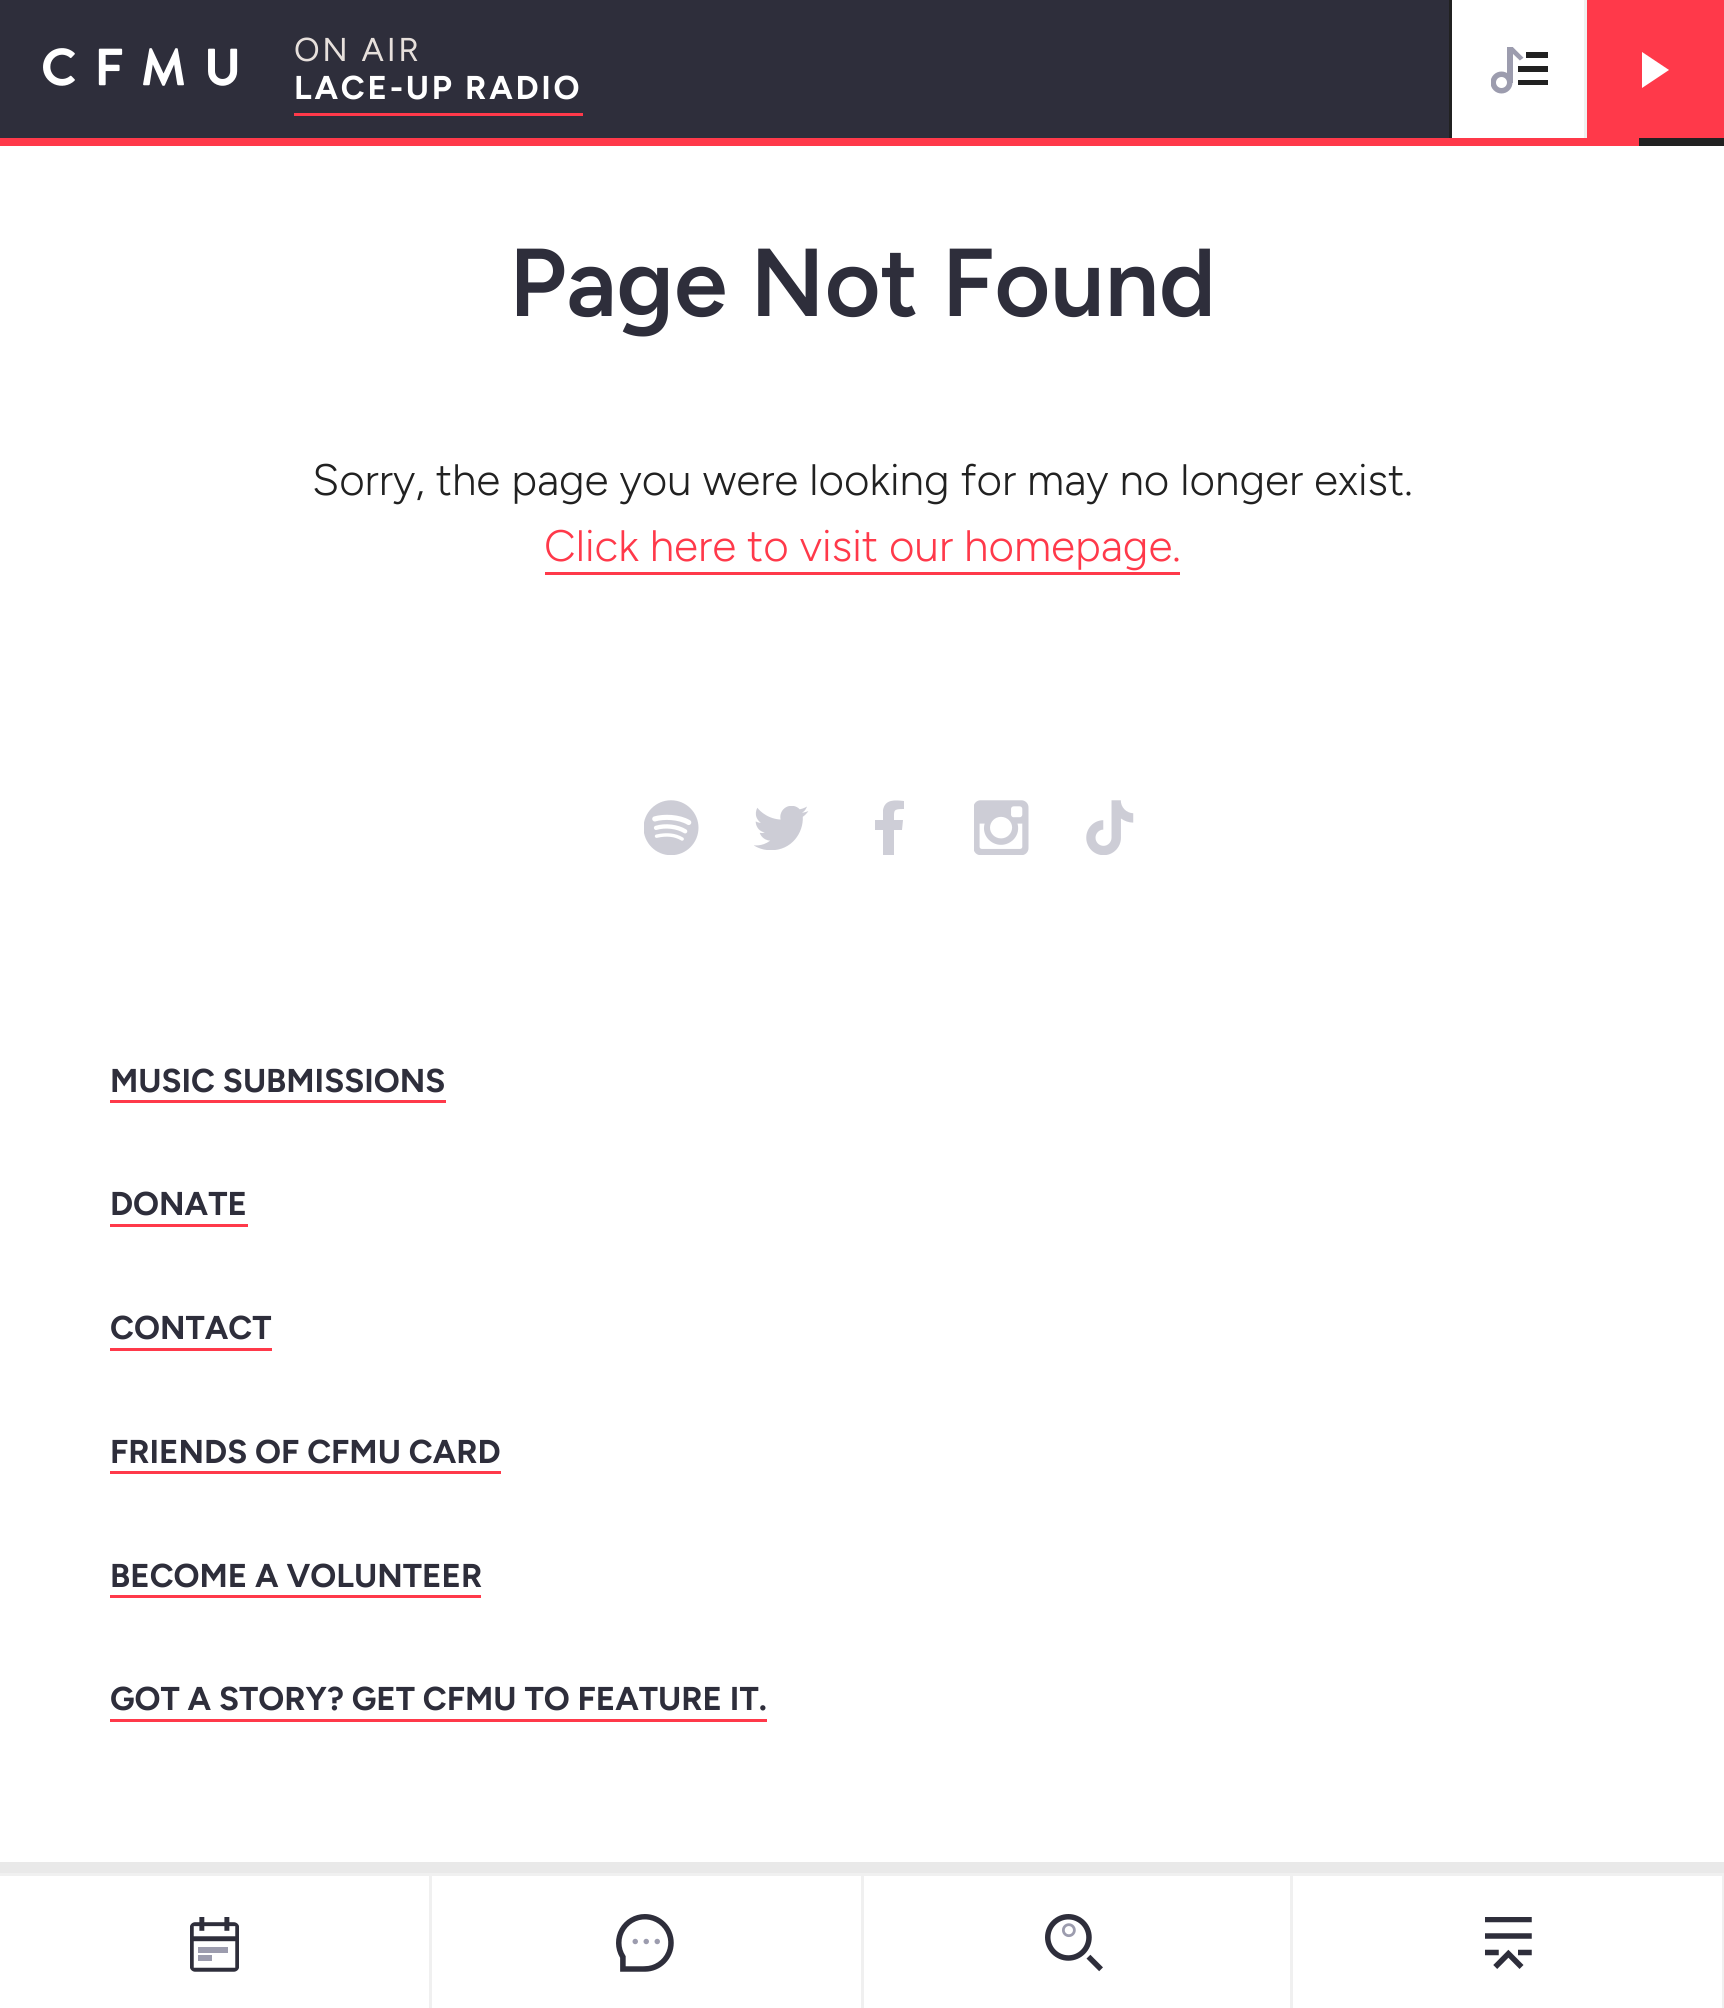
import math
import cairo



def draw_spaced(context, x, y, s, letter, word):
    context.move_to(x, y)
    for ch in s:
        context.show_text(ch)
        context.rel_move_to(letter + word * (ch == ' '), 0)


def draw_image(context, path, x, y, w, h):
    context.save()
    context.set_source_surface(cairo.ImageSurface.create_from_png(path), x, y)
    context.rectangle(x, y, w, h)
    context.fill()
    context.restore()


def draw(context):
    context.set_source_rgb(1, 1, 1)
    context.paint()
    context.set_source_rgb(46 / 255, 46 / 255, 59 / 255)
    context.rectangle(0, 0, 1449, 138)
    context.fill()
    draw_image(context, "images/1.png", 43, 48, 195, 38)
    context.set_source_rgb(1, 57 / 255, 74 / 255)
    context.rectangle(294, 113, 289, 3)
    context.fill()
    context.set_source_rgb(240 / 255, 240 / 255, 240 / 255)
    context.rectangle(1584, 0, 3, 138)
    context.fill()
    context.set_source_rgb(33 / 255, 33 / 255, 33 / 255)
    context.rectangle(1449, 0, 3, 138)
    context.fill()
    draw_image(context, "images/2.png", 1491, 47, 57, 47)
    context.set_source_rgb(1, 57 / 255, 74 / 255)
    context.rectangle(1587, 0, 137, 138)
    context.fill()
    context.set_source_rgb(1, 1, 1)
    context.set_fill_rule(cairo.FillRule.EVEN_ODD)
    context.new_path()
    context.move_to(1642, 52)
    context.line_to(1642, 88)
    context.line_to(1669, 70)
    context.close_path()
    context.fill()
    context.set_source_rgb(33 / 255, 33 / 255, 33 / 255)
    context.rectangle(1639, 138, 85, 8)
    context.fill()
    context.set_source_rgb(1, 57 / 255, 74 / 255)
    context.rectangle(0, 138, 1639, 8)
    context.fill()
    context.rectangle(545, 572, 635, 3)
    context.fill()
    draw_image(context, "images/3.png", 644, 800, 55, 55)
    draw_image(context, "images/4.png", 754, 806, 55, 44)
    context.set_source_rgb(206 / 255, 206 / 255, 215 / 255)
    context.new_path()
    context.move_to(894, 855)
    context.line_to(883, 855)
    context.line_to(883, 830)
    context.line_to(875, 830)
    context.line_to(875, 820)
    context.line_to(883, 820)
    context.line_to(883, 810)
    context.curve_to(885, 799, 895, 800, 904, 801)
    context.line_to(904, 809)
    context.curve_to(893, 809, 894, 810, 894, 820)
    context.line_to(903, 820)
    context.line_to(902, 830)
    context.line_to(894, 830)
    context.close_path()
    context.fill()
    draw_image(context, "images/5.png", 974, 800, 55, 55)
    draw_image(context, "images/6.png", 1086, 800, 48, 55)
    context.set_source_rgb(1, 57 / 255, 74 / 255)
    context.rectangle(110, 1100, 336, 3)
    context.fill()
    context.rectangle(110, 1224, 138, 3)
    context.fill()
    context.rectangle(110, 1348, 162, 3)
    context.fill()
    context.rectangle(110, 1471, 391, 3)
    context.fill()
    context.rectangle(110, 1595, 371, 3)
    context.fill()
    context.rectangle(110, 1719, 657, 3)
    context.fill()
    context.set_source_rgb(233 / 255, 233 / 255, 233 / 255)
    context.rectangle(1293, 1862, 431, 11)
    context.fill()
    context.set_source_rgb(240 / 255, 240 / 255, 240 / 255)
    context.rectangle(1293, 1873, 431, 3)
    context.fill()
    context.rectangle(1722, 1873, 2, 135)
    context.fill()
    draw_image(context, "images/7.png", 1485, 1917, 47, 52)
    context.set_source_rgba(33 / 255, 33 / 255, 33 / 255, 0.1)
    context.set_fill_rule(cairo.FillRule.WINDING)
    context.new_path()
    context.move_to(0, 1862)
    context.line_to(0, 1873)
    context.line_to(1292, 1873)
    context.line_to(1292, 1999)
    context.line_to(1293, 1999)
    context.line_to(1293, 1862)
    context.close_path()
    context.fill()
    context.set_source_rgb(240 / 255, 240 / 255, 240 / 255)
    context.rectangle(0, 1873, 1293, 3)
    context.fill()
    context.rectangle(429, 1876, 3, 132)
    context.fill()
    draw_image(context, "images/8.png", 190, 1917, 49, 55)
    context.rectangle(861, 1876, 3, 132)
    context.fill()
    draw_image(context, "images/9.png", 616, 1914, 58, 58)
    context.rectangle(1290, 1876, 3, 132)
    context.fill()
    draw_image(context, "images/10.png", 1045, 1914, 58, 58)
    context.select_font_face("Figtree")
    context.set_font_size(33)
    context.set_source_rgb(231 / 255, 224 / 255, 220 / 255)
    draw_spaced(context, 294, 61, "ON AIR", 2.75, 0)
    context.select_font_face("Figtree", cairo.FontSlant.NORMAL, cairo.FontWeight.BOLD)
    context.set_source_rgb(1, 1, 1)
    draw_spaced(context, 294, 99, "LACE-UP RADIO", 2.75, 0)
    context.select_font_face("Figtree SemiBold")
    context.set_font_size(96.25)
    context.set_source_rgb(46 / 255, 46 / 255, 59 / 255)
    context.move_to(509, 316)
    context.show_text("Page Not Found")
    context.select_font_face("Figtree Light")
    context.set_font_size(44)
    context.set_source_rgb(33 / 255, 33 / 255, 33 / 255)
    context.move_to(312, 495)
    context.show_text("Sorry, the page you were looking for may no longer exist.")
    context.set_source_rgb(1, 57 / 255, 74 / 255)
    context.move_to(544, 561)
    context.show_text("Click here to visit our homepage.")
    context.select_font_face("Figtree", cairo.FontSlant.NORMAL, cairo.FontWeight.BOLD)
    context.set_font_size(33)
    context.set_source_rgb(46 / 255, 46 / 255, 59 / 255)
    context.move_to(110, 1092)
    context.show_text("MUSIC SUBMISSIONS")
    context.move_to(110, 1215)
    context.show_text("DONATE")
    context.move_to(110, 1339)
    context.show_text("CONTACT")
    context.move_to(110, 1463)
    context.show_text("FRIENDS OF CFMU CARD")
    context.move_to(110, 1587)
    context.show_text("BECOME A VOLUNTEER")
    context.move_to(110, 1710)
    context.show_text("GOT A STORY? GET CFMU TO FEATURE IT.")


surface = cairo.ImageSurface(cairo.Format.RGB24, 1724, 2008)
context = cairo.Context(surface)
options = cairo.FontOptions()
options.set_hint_metrics(cairo.HintMetrics.OFF)
options.set_hint_style(cairo.HintStyle.NONE)
context.set_font_options(options)
context.set_miter_limit(4)
draw(context)
surface.write_to_png("out.png")
